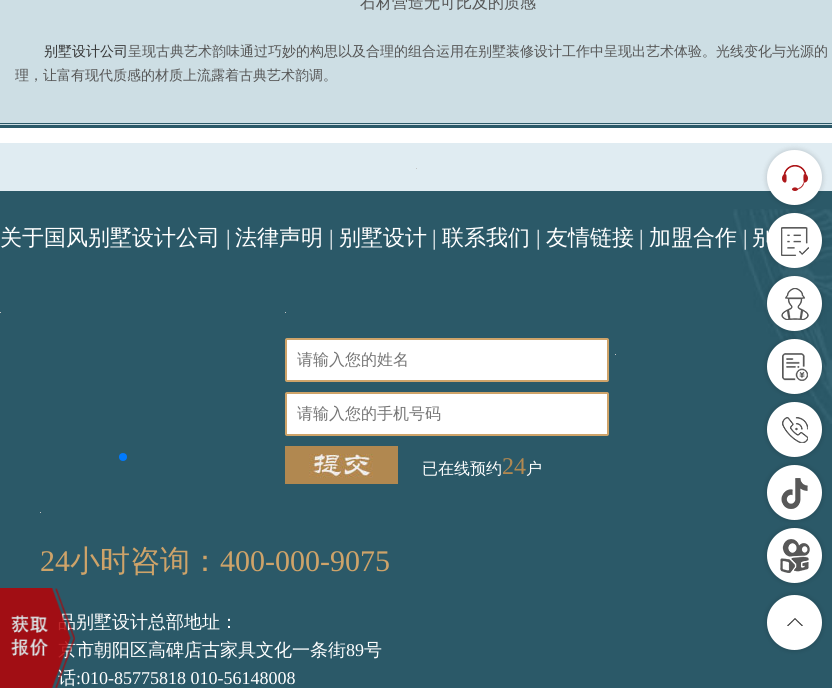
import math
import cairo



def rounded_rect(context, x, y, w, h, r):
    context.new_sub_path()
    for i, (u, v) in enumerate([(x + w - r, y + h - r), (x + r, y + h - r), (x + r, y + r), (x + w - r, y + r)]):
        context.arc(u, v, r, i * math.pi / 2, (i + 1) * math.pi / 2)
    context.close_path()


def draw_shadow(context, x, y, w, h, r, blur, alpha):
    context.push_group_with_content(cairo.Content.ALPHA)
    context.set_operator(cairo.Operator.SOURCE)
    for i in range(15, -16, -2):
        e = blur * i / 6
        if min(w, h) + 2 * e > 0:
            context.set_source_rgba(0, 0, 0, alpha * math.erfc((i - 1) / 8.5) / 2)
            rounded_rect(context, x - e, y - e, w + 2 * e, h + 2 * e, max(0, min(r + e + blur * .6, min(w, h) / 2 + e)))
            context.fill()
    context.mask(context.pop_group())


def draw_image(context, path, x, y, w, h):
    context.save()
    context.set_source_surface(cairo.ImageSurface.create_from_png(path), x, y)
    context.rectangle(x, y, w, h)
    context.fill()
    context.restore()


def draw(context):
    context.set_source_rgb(1, 1, 1)
    context.paint()
    context.set_source_rgb(205 / 255, 222 / 255, 228 / 255)
    context.rectangle(0, 0, 832, 125)
    context.fill()
    context.set_source_rgb(43 / 255, 89 / 255, 104 / 255)
    context.rectangle(0, 125, 832, 3)
    context.fill()
    context.rectangle(0, 123, 832, 1)
    context.fill()
    context.set_source_rgb(224 / 255, 236 / 255, 242 / 255)
    context.rectangle(0, 143, 832, 48)
    context.fill()
    context.set_source_rgb(43 / 255, 89 / 255, 104 / 255)
    context.rectangle(0, 191, 832, 497)
    context.fill()
    draw_image(context, "images/8.png", 733, 209, 99, 215)
    context.set_source_rgb(0, 0, 0)
    draw_shadow(context, 765, 148, 59, 59, 29.5, 2, 0.1)
    context.set_source_rgb(1, 1, 1)
    context.arc(794.5, 177.5, 27.5, 0, 2 * math.pi)
    context.fill()
    draw_image(context, "images/1.png", 782, 165, 26, 26)
    context.set_source_rgb(0, 0, 0)
    draw_shadow(context, 765, 211, 59, 59, 29.5, 2, 0.1)
    context.set_source_rgb(1, 1, 1)
    context.arc(794.5, 240.5, 27.5, 0, 2 * math.pi)
    context.fill()
    draw_image(context, "images/2.png", 781, 227, 28, 29)
    context.set_source_rgb(0, 0, 0)
    draw_shadow(context, 765, 274, 59, 59, 29.5, 2, 0.1)
    context.set_source_rgb(1, 1, 1)
    context.arc(794.5, 303.5, 27.5, 0, 2 * math.pi)
    context.fill()
    draw_image(context, "images/3.png", 781, 288, 28, 32)
    context.set_source_rgb(0, 0, 0)
    draw_shadow(context, 765, 337, 59, 59, 29.5, 2, 0.1)
    context.set_source_rgb(1, 1, 1)
    context.arc(794.5, 366.5, 27.5, 0, 2 * math.pi)
    context.fill()
    draw_image(context, "images/4.png", 782, 353, 26, 28)
    context.set_source_rgb(0, 0, 0)
    draw_shadow(context, 765, 400, 59, 59, 29.5, 2, 0.1)
    context.set_source_rgb(1, 1, 1)
    context.arc(794.5, 429.5, 27.5, 0, 2 * math.pi)
    context.fill()
    draw_image(context, "images/5.png", 782, 417, 26, 26)
    context.set_source_rgb(0, 0, 0)
    draw_shadow(context, 765, 463, 59, 59, 29.5, 2, 0.1)
    context.set_source_rgb(1, 1, 1)
    context.arc(794.5, 492.5, 27.5, 0, 2 * math.pi)
    context.fill()
    draw_image(context, "images/6.png", 781, 478, 27, 31)
    context.set_source_rgb(0, 0, 0)
    draw_shadow(context, 765, 526, 59, 59, 29.5, 2, 0.1)
    context.set_source_rgb(1, 1, 1)
    context.arc(794.5, 555.5, 27.5, 0, 2 * math.pi)
    context.fill()
    draw_image(context, "images/7.png", 780, 539, 30, 34)
    context.set_source_rgb(195 / 255, 195 / 255, 195 / 255)
    context.rectangle(416, 168, 1, 1)
    context.fill()
    context.rectangle(0, 312, 1, 1)
    context.fill()
    context.set_source_rgb(0, 122 / 255, 1)
    context.arc(123, 457, 4, 0, 2 * math.pi)
    context.fill()
    context.set_source_rgb(195 / 255, 195 / 255, 195 / 255)
    context.rectangle(285, 312, 1, 1)
    context.fill()
    context.set_source_rgb(1, 1, 1)
    rounded_rect(context, 286, 339, 322, 42, 1)
    context.fill_preserve()
    context.set_source_rgb(206 / 255, 163 / 255, 105 / 255)
    context.stroke()
    context.set_source_rgb(1, 1, 1)
    rounded_rect(context, 286, 393, 322, 42, 1)
    context.fill_preserve()
    context.set_source_rgb(206 / 255, 163 / 255, 105 / 255)
    context.stroke()
    draw_image(context, "images/9.png", 285, 446, 113, 38)
    context.set_source_rgb(195 / 255, 195 / 255, 195 / 255)
    context.rectangle(615, 354, 1, 1)
    context.fill()
    context.rectangle(40, 512, 1, 1)
    context.fill()
    context.set_source_rgb(0, 0, 0)
    draw_shadow(context, 765, 593, 59, 59, 29.5, 2, 0.1)
    context.set_source_rgb(1, 1, 1)
    context.arc(794.5, 622.5, 27.5, 0, 2 * math.pi)
    context.fill()
    draw_image(context, "images/10.png", 787, 618, 16, 8)
    context.select_font_face("WenQuanYi Zen Hei Medium")
    context.set_font_size(16)
    context.set_source_rgb(85 / 255, 85 / 255, 85 / 255)
    context.move_to(360, 8)
    context.show_text("石材营造无可比及的质感")
    context.set_font_size(14)
    context.set_source_rgb(51 / 255, 51 / 255, 51 / 255)
    context.move_to(44, 56)
    context.show_text("别墅设计公司")
    context.set_source_rgb(85 / 255, 85 / 255, 85 / 255)
    context.move_to(128, 56)
    context.show_text("呈现古典艺术韵味通过巧妙的构思以及合理的组合运用在别墅装修设计工作中呈现出艺术体验。光线变化与光源的")
    context.move_to(15, 80)
    context.show_text("理，让富有现代质感的材质上流露着古典艺术韵调。")
    context.set_font_size(22)
    context.set_source_rgb(1, 1, 1)
    context.move_to(0, 245)
    context.show_text("关于国风别墅设计公司")
    context.select_font_face("Liberation Serif")
    context.move_to(226, 245)
    context.show_text("|")
    context.select_font_face("WenQuanYi Zen Hei Medium")
    context.move_to(235, 245)
    context.show_text("法律声明")
    context.select_font_face("Liberation Serif")
    context.move_to(329, 245)
    context.show_text("|")
    context.select_font_face("WenQuanYi Zen Hei Medium")
    context.move_to(339, 245)
    context.show_text("别墅设计")
    context.select_font_face("Liberation Serif")
    context.move_to(432, 245)
    context.show_text("|")
    context.select_font_face("WenQuanYi Zen Hei Medium")
    context.move_to(442, 245)
    context.show_text("联系我们")
    context.select_font_face("Liberation Serif")
    context.move_to(536, 245)
    context.show_text("|")
    context.select_font_face("WenQuanYi Zen Hei Medium")
    context.move_to(546, 245)
    context.show_text("友情链接")
    context.select_font_face("Liberation Serif")
    context.move_to(639, 245)
    context.show_text("|")
    context.select_font_face("WenQuanYi Zen Hei Medium")
    context.move_to(649, 245)
    context.show_text("加盟合作")
    context.select_font_face("Liberation Serif")
    context.move_to(743, 245)
    context.show_text("|")
    context.select_font_face("WenQuanYi Zen Hei Medium")
    context.move_to(752, 245)
    context.show_text("别")
    context.set_font_size(16)
    context.set_source_rgb(117 / 255, 117 / 255, 117 / 255)
    context.move_to(297, 365)
    context.show_text("请输入您的姓名")
    context.move_to(297, 419)
    context.show_text("请输入您的手机号码")
    context.set_source_rgb(1, 1, 1)
    context.move_to(422, 474)
    context.show_text("已在线预约")
    context.select_font_face("Liberation Serif")
    context.set_font_size(24)
    context.set_source_rgb(178 / 255, 136 / 255, 80 / 255)
    context.move_to(502, 474)
    context.show_text("24")
    context.select_font_face("WenQuanYi Zen Hei Medium")
    context.set_font_size(16)
    context.set_source_rgb(1, 1, 1)
    context.move_to(526, 474)
    context.show_text("户")
    context.select_font_face("Liberation Serif")
    context.set_font_size(30)
    context.set_source_rgb(206 / 255, 163 / 255, 105 / 255)
    context.move_to(40, 571)
    context.show_text("24")
    context.select_font_face("WenQuanYi Zen Hei Medium")
    context.move_to(70, 571)
    context.show_text("小时咨询：")
    context.select_font_face("Liberation Serif")
    context.move_to(220, 571)
    context.show_text("400-000-9075")
    context.select_font_face("WenQuanYi Zen Hei Medium")
    context.set_font_size(18)
    context.set_source_rgb(1, 1, 1)
    context.move_to(58, 628)
    context.show_text("品别墅设计总部地址：")
    context.move_to(58, 656)
    context.show_text("京市朝阳区高碑店古家具文化一条街")
    context.select_font_face("Liberation Serif")
    context.move_to(346, 656)
    context.show_text("89")
    context.select_font_face("WenQuanYi Zen Hei Medium")
    context.move_to(364, 656)
    context.show_text("号")
    context.move_to(58, 684)
    context.show_text("话")
    context.select_font_face("Liberation Serif")
    context.move_to(76, 684)
    context.show_text(":010-85775818 010-56148008")
    draw_image(context, "images/11.png", 0, 588, 75, 100)


surface = cairo.ImageSurface(cairo.Format.RGB24, 832, 688)
context = cairo.Context(surface)
options = cairo.FontOptions()
options.set_hint_metrics(cairo.HintMetrics.OFF)
options.set_hint_style(cairo.HintStyle.NONE)
context.set_font_options(options)
context.set_miter_limit(4)
draw(context)
surface.write_to_png("out.png")
